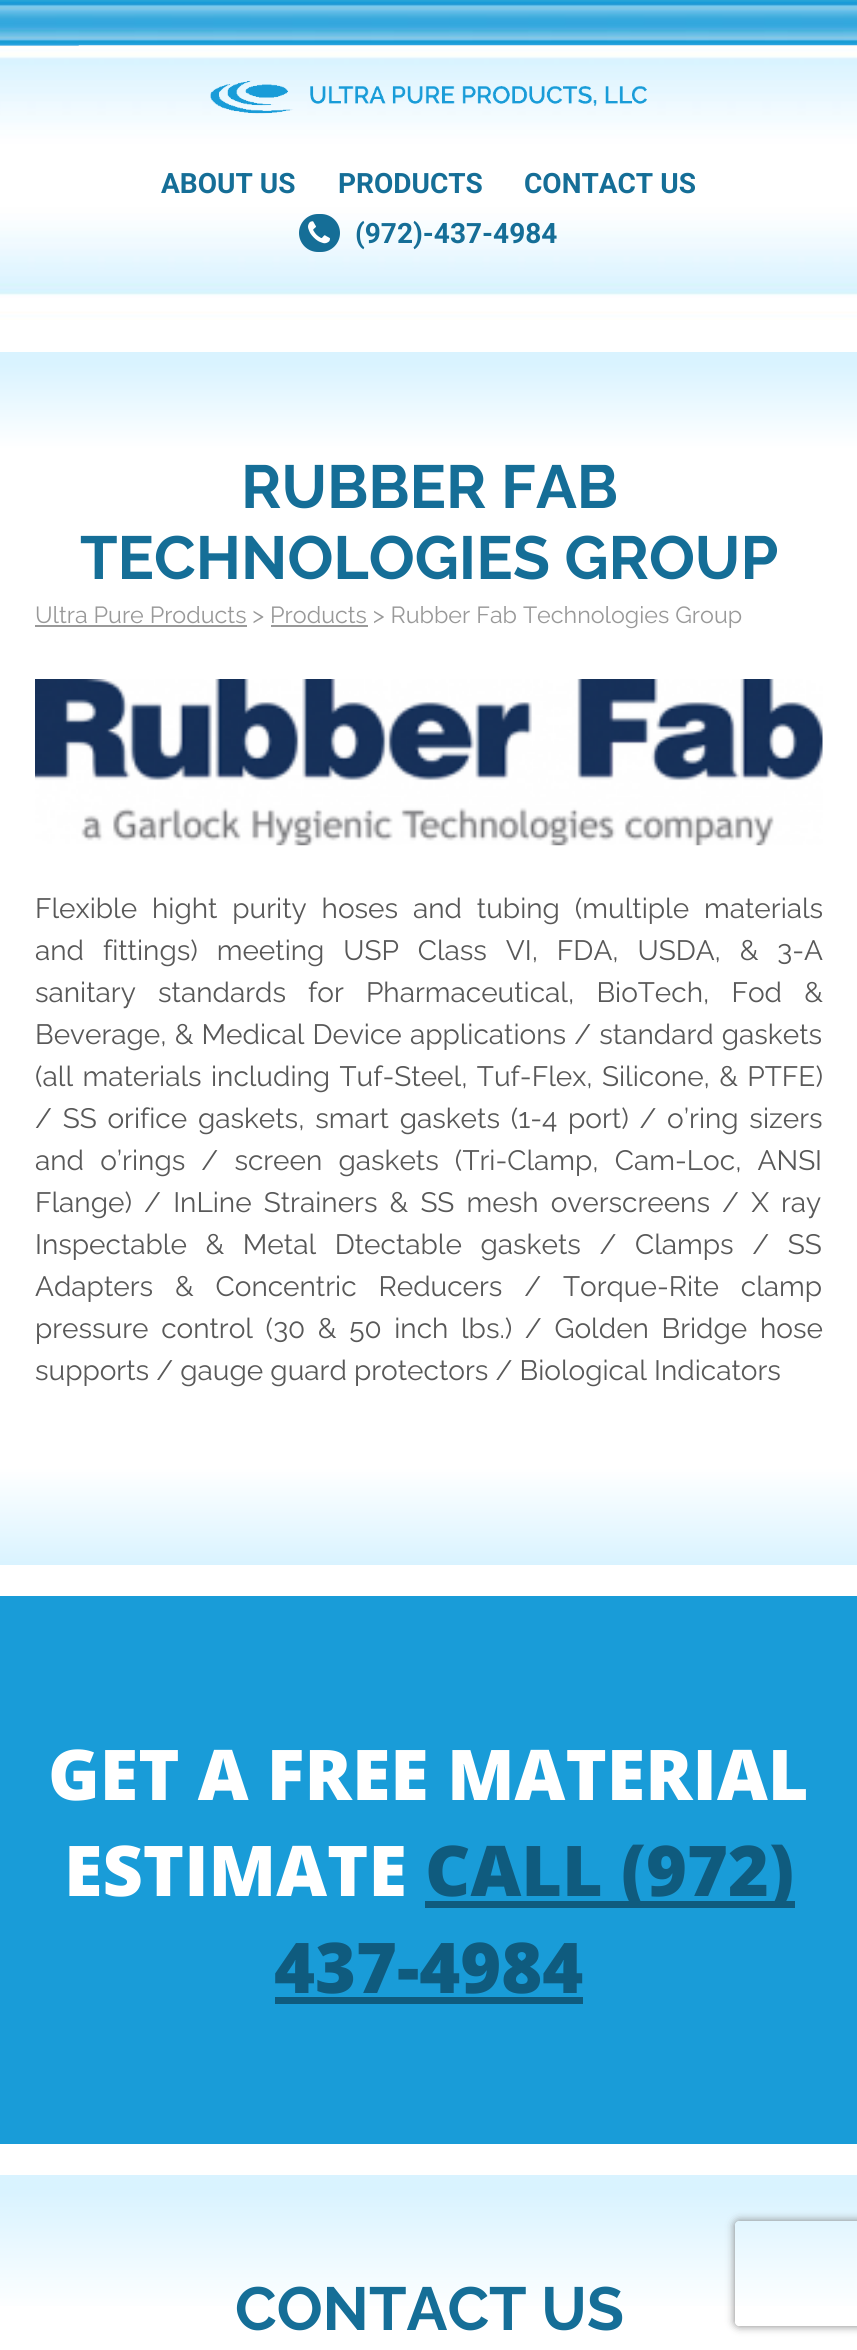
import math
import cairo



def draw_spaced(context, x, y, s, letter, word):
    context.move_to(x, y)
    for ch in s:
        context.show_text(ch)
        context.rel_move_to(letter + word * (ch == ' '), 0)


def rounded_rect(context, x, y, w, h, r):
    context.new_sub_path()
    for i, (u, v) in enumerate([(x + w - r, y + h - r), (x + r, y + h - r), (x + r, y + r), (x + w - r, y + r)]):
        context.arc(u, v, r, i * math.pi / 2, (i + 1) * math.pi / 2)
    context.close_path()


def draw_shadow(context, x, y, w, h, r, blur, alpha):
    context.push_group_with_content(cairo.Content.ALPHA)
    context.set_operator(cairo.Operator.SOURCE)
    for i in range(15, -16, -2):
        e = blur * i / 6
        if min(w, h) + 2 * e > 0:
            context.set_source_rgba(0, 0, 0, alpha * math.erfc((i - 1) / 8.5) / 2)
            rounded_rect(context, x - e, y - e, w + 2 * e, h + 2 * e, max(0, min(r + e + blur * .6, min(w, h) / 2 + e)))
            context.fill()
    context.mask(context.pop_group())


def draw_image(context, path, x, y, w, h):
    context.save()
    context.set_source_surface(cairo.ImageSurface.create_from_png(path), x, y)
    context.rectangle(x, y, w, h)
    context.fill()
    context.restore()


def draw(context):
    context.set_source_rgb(1, 1, 1)
    context.paint()
    draw_image(context, "images/1.png", 0, 0, 857, 46)
    draw_image(context, "images/3.png", 0, 45, 857, 275)
    draw_image(context, "images/2.png", 0, 45, 79, 1)
    draw_image(context, "images/4.png", 210, 80, 437, 34)
    context.set_source_rgb(21 / 255, 110 / 255, 151 / 255)
    rounded_rect(context, 299, 214, 41, 38, 19)
    context.fill()
    draw_image(context, "images/5.png", 308, 221, 22, 23)
    gradient = cairo.LinearGradient(429, 352, 429, 1565)
    gradient.add_color_stop_rgba(0.01, 217 / 255, 243 / 255, 1, 1)
    gradient.add_color_stop_rgba(0.08, 1, 1, 1, 1)
    gradient.add_color_stop_rgba(0.92, 1, 1, 1, 1)
    gradient.add_color_stop_rgba(1, 217 / 255, 243 / 255, 1, 1)
    context.set_source(gradient)
    context.rectangle(0, 352, 857, 1213)
    context.fill()
    context.set_source_rgb(153 / 255, 153 / 255, 153 / 255)
    context.rectangle(35, 625, 212, 2)
    context.fill()
    context.rectangle(271, 625, 97, 2)
    context.fill()
    draw_image(context, "images/6.png", 35, 679, 788, 167)
    context.set_source_rgb(25 / 255, 156 / 255, 216 / 255)
    context.rectangle(0, 1596, 857, 548)
    context.fill()
    context.set_source_rgb(15 / 255, 91 / 255, 126 / 255)
    context.rectangle(425, 1901, 370, 7)
    context.fill()
    context.rectangle(275, 1997, 308, 7)
    context.fill()
    gradient = cairo.LinearGradient(429, 2175, 429, 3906)
    gradient.add_color_stop_rgba(0.01, 217 / 255, 243 / 255, 1, 1)
    gradient.add_color_stop_rgba(0.08, 1, 1, 1, 1)
    gradient.add_color_stop_rgba(0.92, 1, 1, 1, 1)
    gradient.add_color_stop_rgba(1, 217 / 255, 243 / 255, 1, 1)
    context.set_source(gradient)
    context.rectangle(0, 2175, 857, 131)
    context.fill()
    context.save()
    context.set_fill_rule(cairo.FillRule.EVEN_ODD)
    context.new_path()
    context.move_to(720, 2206)
    context.line_to(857, 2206)
    context.line_to(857, 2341)
    context.line_to(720, 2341)
    context.close_path()
    context.move_to(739, 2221)
    context.line_to(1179, 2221)
    context.curve_to(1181, 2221, 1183, 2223, 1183, 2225)
    context.line_to(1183, 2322)
    context.curve_to(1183, 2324, 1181, 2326, 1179, 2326)
    context.line_to(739, 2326)
    context.curve_to(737, 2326, 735, 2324, 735, 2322)
    context.line_to(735, 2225)
    context.curve_to(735, 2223, 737, 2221, 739, 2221)
    context.close_path()
    context.clip()
    context.set_source_rgb(128 / 255, 128 / 255, 128 / 255)
    draw_shadow(context, 735, 2221, 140, 105, 4, 4.5, 1)
    context.restore()
    context.select_font_face("Roboto", cairo.FontSlant.NORMAL, cairo.FontWeight.BOLD)
    context.set_font_size(28)
    context.set_source_rgb(21 / 255, 110 / 255, 151 / 255)
    context.move_to(161, 193)
    context.show_text("ABOUT US")
    context.move_to(338, 193)
    context.show_text("PRODUCTS")
    context.move_to(524, 193)
    context.show_text("CONTACT US")
    context.move_to(355, 243)
    context.show_text("(972)-437-4984")
    context.select_font_face("Raleway", cairo.FontSlant.NORMAL, cairo.FontWeight.BOLD)
    context.set_font_size(60.75)
    context.move_to(241, 508)
    context.show_text("RUBBER FAB")
    context.move_to(80, 579)
    context.show_text("TECHNOLOGIES GROUP")
    context.select_font_face("Raleway")
    context.set_font_size(23.3)
    context.set_source_rgb(153 / 255, 153 / 255, 153 / 255)
    context.move_to(35, 623)
    context.show_text("Ultra Pure Products > Products > Rubber Fab Technologies Group")
    context.set_font_size(28)
    context.set_source_rgb(88 / 255, 88 / 255, 88 / 255)
    draw_spaced(context, 35, 918, "Flexible hight purity hoses and tubing (multiple materials", 0, 7.75)
    draw_spaced(context, 35, 960, "and fittings) meeting USP Class VI, FDA, USDA, & 3-A", 0, 11.75)
    draw_spaced(context, 35, 1002, "sanitary standards for Pharmaceutical, BioTech, Fod &", 0, 15)
    draw_spaced(context, 35, 1044, "Beverage, & Medical Device applications / standard gaskets", 0, 1)
    draw_spaced(context, 35, 1086, "(all materials including Tuf-Steel, Tuf-Flex, Silicone, & PTFE)", 0, 2.25)
    draw_spaced(context, 35, 1128, "/ SS orifice gaskets, smart gaskets (1-4 port) / o’ring sizers", 0, 3.6)
    draw_spaced(context, 35, 1170, "and o’rings / screen gaskets (Tri-Clamp, Cam-Loc, ANSI", 0, 9)
    draw_spaced(context, 35, 1212, "Flange) / InLine Strainers & SS mesh overscreens / X ray", 0, 5)
    draw_spaced(context, 35, 1254, "Inspectable & Metal Dtectable gaskets / Clamps / SS", 0, 11.5)
    draw_spaced(context, 35, 1296, "Adapters & Concentric Reducers / Torque-Rite clamp", 0, 14.75)
    draw_spaced(context, 35, 1338, "pressure control (30 & 50 inch lbs.) / Golden Bridge hose", 0, 5.5)
    context.move_to(35, 1380)
    context.show_text("supports / gauge guard protectors / Biological Indicators")
    context.select_font_face("Open Sans ExtraBold")
    context.set_font_size(70)
    context.set_source_rgb(1, 1, 1)
    context.move_to(48, 1800)
    context.show_text("GET A FREE MATERIAL")
    context.move_to(64, 1896)
    context.show_text("ESTIMATE")
    context.set_source_rgb(15 / 255, 91 / 255, 126 / 255)
    context.move_to(425, 1896)
    context.show_text("CALL (972)")
    context.move_to(274, 1993)
    context.show_text("437-4984")
    context.select_font_face("Raleway", cairo.FontSlant.NORMAL, cairo.FontWeight.BOLD)
    context.set_font_size(60.75)
    context.set_source_rgb(21 / 255, 110 / 255, 151 / 255)
    context.move_to(235, 2330)
    context.show_text("CONTACT US")


surface = cairo.ImageSurface(cairo.Format.RGB24, 857, 2350)
context = cairo.Context(surface)
options = cairo.FontOptions()
options.set_hint_metrics(cairo.HintMetrics.OFF)
options.set_hint_style(cairo.HintStyle.NONE)
context.set_font_options(options)
context.set_miter_limit(4)
draw(context)
surface.write_to_png("out.png")
